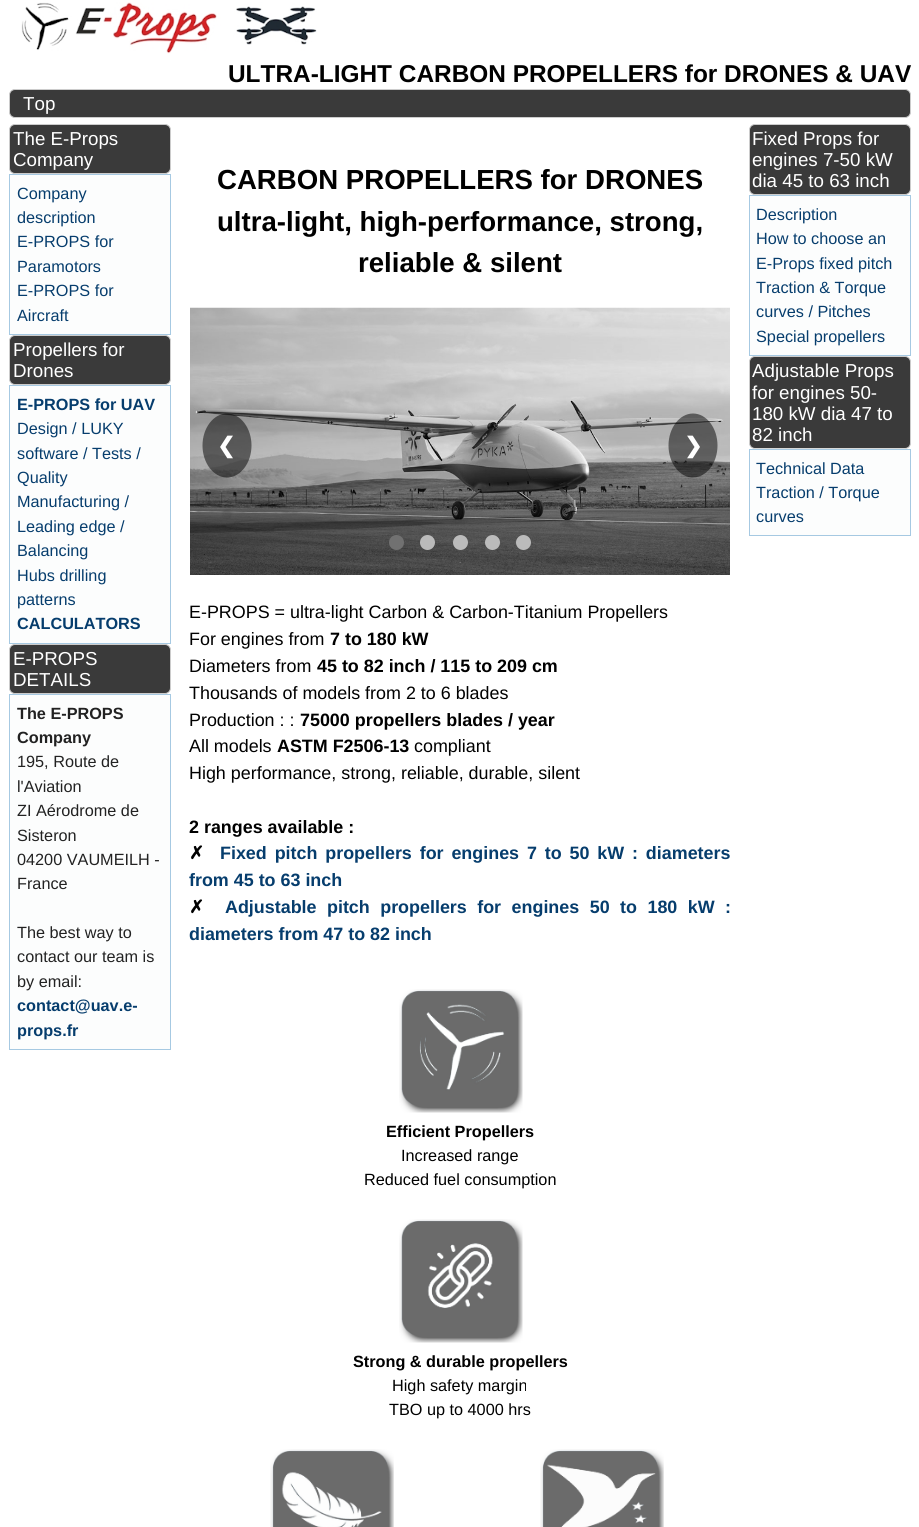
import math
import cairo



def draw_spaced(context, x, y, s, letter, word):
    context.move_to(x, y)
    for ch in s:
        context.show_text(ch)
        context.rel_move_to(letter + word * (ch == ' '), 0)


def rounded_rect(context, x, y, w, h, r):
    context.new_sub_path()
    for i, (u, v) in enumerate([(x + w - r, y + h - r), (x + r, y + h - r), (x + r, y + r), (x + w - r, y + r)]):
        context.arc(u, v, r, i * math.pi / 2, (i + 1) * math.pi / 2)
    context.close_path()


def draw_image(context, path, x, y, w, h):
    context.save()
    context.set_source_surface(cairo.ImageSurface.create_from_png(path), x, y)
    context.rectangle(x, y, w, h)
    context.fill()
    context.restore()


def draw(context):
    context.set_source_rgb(1, 1, 1)
    context.paint()
    draw_image(context, "images/1.png", 21, 2, 296, 52)
    context.set_source_rgb(58 / 255, 58 / 255, 58 / 255)
    rounded_rect(context, 9.5, 89.5, 901, 28, 5.5)
    context.fill_preserve()
    context.set_source_rgb(204 / 255, 204 / 255, 204 / 255)
    context.set_line_width(1)
    context.stroke()
    context.set_source_rgb(58 / 255, 58 / 255, 58 / 255)
    rounded_rect(context, 9.5, 124.5, 161, 49, 5.5)
    context.fill_preserve()
    context.set_source_rgb(204 / 255, 204 / 255, 204 / 255)
    context.stroke()
    context.set_source_rgb(252 / 255, 253 / 255, 253 / 255)
    context.rectangle(9.5, 174.5, 161, 160)
    context.fill_preserve()
    context.set_source_rgb(166 / 255, 201 / 255, 226 / 255)
    context.stroke()
    context.set_source_rgb(58 / 255, 58 / 255, 58 / 255)
    rounded_rect(context, 9.5, 335.5, 161, 49, 5.5)
    context.fill_preserve()
    context.set_source_rgb(204 / 255, 204 / 255, 204 / 255)
    context.stroke()
    context.set_source_rgb(252 / 255, 253 / 255, 253 / 255)
    context.rectangle(9.5, 385.5, 161, 258)
    context.fill_preserve()
    context.set_source_rgb(166 / 255, 201 / 255, 226 / 255)
    context.stroke()
    context.set_source_rgb(58 / 255, 58 / 255, 58 / 255)
    rounded_rect(context, 9.5, 644.5, 161, 49, 5.5)
    context.fill_preserve()
    context.set_source_rgb(204 / 255, 204 / 255, 204 / 255)
    context.stroke()
    context.set_source_rgb(252 / 255, 253 / 255, 253 / 255)
    context.rectangle(9.5, 694.5, 161, 355)
    context.fill_preserve()
    context.set_source_rgb(166 / 255, 201 / 255, 226 / 255)
    context.stroke()
    draw_image(context, "images/2.png", 190, 307, 540, 268)
    context.set_source_rgba(0, 0, 0, 0.5)
    context.new_path()
    context.move_to(227, 413.5)
    context.curve_to(240.5, 413.5, 251.5, 428, 251.5, 445.5)
    context.curve_to(251.5, 463, 240.5, 477.5, 227, 477.5)
    context.curve_to(213.5, 477.5, 202.5, 463, 202.5, 445.5)
    context.curve_to(202.5, 428, 213.5, 413.5, 227, 413.5)
    context.close_path()
    context.fill()
    context.new_path()
    context.move_to(693, 413.5)
    context.curve_to(706.5, 413.5, 717.5, 428, 717.5, 445.5)
    context.curve_to(717.5, 463, 706.5, 477.5, 693, 477.5)
    context.curve_to(679.5, 477.5, 668.5, 463, 668.5, 445.5)
    context.curve_to(668.5, 428, 679.5, 413.5, 693, 413.5)
    context.close_path()
    context.fill()
    context.set_source_rgb(113 / 255, 113 / 255, 113 / 255)
    context.arc(396.5, 542.5, 7.5, 0, 2 * math.pi)
    context.fill()
    context.set_source_rgb(187 / 255, 187 / 255, 187 / 255)
    context.arc(427.5, 542.5, 7.5, 0, 2 * math.pi)
    context.fill()
    context.arc(460.5, 542.5, 7.5, 0, 2 * math.pi)
    context.fill()
    context.arc(492.5, 542.5, 7.5, 0, 2 * math.pi)
    context.fill()
    context.arc(523.5, 542.5, 7.5, 0, 2 * math.pi)
    context.fill()
    draw_image(context, "images/3.png", 399, 989, 124, 124)
    draw_image(context, "images/4.png", 399, 1219, 124, 124)
    draw_image(context, "images/5.png", 270, 1449, 124, 78)
    draw_image(context, "images/6.png", 540, 1449, 124, 78)
    context.set_source_rgb(58 / 255, 58 / 255, 58 / 255)
    rounded_rect(context, 749.5, 124.5, 161, 70, 5.5)
    context.fill_preserve()
    context.set_source_rgb(204 / 255, 204 / 255, 204 / 255)
    context.stroke()
    context.set_source_rgb(252 / 255, 253 / 255, 253 / 255)
    context.rectangle(749.5, 195.5, 161, 160)
    context.fill_preserve()
    context.set_source_rgb(166 / 255, 201 / 255, 226 / 255)
    context.stroke()
    context.set_source_rgb(58 / 255, 58 / 255, 58 / 255)
    rounded_rect(context, 749.5, 356.5, 161, 92, 5.5)
    context.fill_preserve()
    context.set_source_rgb(204 / 255, 204 / 255, 204 / 255)
    context.stroke()
    context.set_source_rgb(252 / 255, 253 / 255, 253 / 255)
    context.rectangle(749.5, 449.5, 161, 86)
    context.fill_preserve()
    context.set_source_rgb(166 / 255, 201 / 255, 226 / 255)
    context.stroke()
    context.set_source_rgba(251 / 255, 1, 1, 0.25)
    context.rectangle(752, 448, 156, 1)
    context.fill()
    context.select_font_face("Liberation Sans", cairo.FontSlant.NORMAL, cairo.FontWeight.BOLD)
    context.set_font_size(24.4)
    context.set_source_rgb(0, 0, 0)
    context.move_to(228, 82)
    context.show_text("ULTRA-LIGHT CARBON PROPELLERS for DRONES & UAV")
    context.select_font_face("Liberation Sans")
    context.set_font_size(18.75)
    context.set_source_rgb(1, 1, 1)
    context.move_to(23, 110)
    context.show_text("Top")
    context.move_to(13, 145)
    context.show_text("The E-Props")
    context.move_to(13, 166)
    context.show_text("Company")
    context.set_font_size(16.25)
    context.set_source_rgb(6 / 255, 61 / 255, 109 / 255)
    context.move_to(17, 199)
    context.show_text("Company")
    context.move_to(17, 223)
    context.show_text("description")
    context.move_to(17, 247)
    context.show_text("E-PROPS for")
    context.move_to(17, 272)
    context.show_text("Paramotors")
    context.move_to(17, 296)
    context.show_text("E-PROPS for")
    context.move_to(17, 321)
    context.show_text("Aircraft")
    context.set_font_size(18.75)
    context.set_source_rgb(1, 1, 1)
    context.move_to(13, 356)
    context.show_text("Propellers for")
    context.move_to(13, 377)
    context.show_text("Drones")
    context.select_font_face("Liberation Sans", cairo.FontSlant.NORMAL, cairo.FontWeight.BOLD)
    context.set_font_size(16.25)
    context.set_source_rgb(6 / 255, 61 / 255, 109 / 255)
    context.move_to(17, 410)
    context.show_text("E-PROPS for UAV")
    context.select_font_face("Liberation Sans")
    context.move_to(17, 434)
    context.show_text("Design / LUKY")
    context.move_to(17, 459)
    context.show_text("software / Tests /")
    context.move_to(17, 483)
    context.show_text("Quality")
    context.move_to(17, 507)
    context.show_text("Manufacturing /")
    context.move_to(17, 532)
    context.show_text("Leading edge /")
    context.move_to(17, 556)
    context.show_text("Balancing")
    context.move_to(17, 581)
    context.show_text("Hubs drilling")
    context.move_to(17, 605)
    context.show_text("patterns")
    context.select_font_face("Liberation Sans", cairo.FontSlant.NORMAL, cairo.FontWeight.BOLD)
    context.move_to(17, 629)
    context.show_text("CALCULATORS")
    context.select_font_face("Liberation Sans")
    context.set_font_size(18.75)
    context.set_source_rgb(1, 1, 1)
    context.move_to(13, 665)
    context.show_text("E-PROPS")
    context.move_to(13, 686)
    context.show_text("DETAILS")
    context.select_font_face("Liberation Sans", cairo.FontSlant.NORMAL, cairo.FontWeight.BOLD)
    context.set_font_size(16.25)
    context.set_source_rgb(34 / 255, 34 / 255, 34 / 255)
    context.move_to(17, 719)
    context.show_text("The E-PROPS")
    context.move_to(17, 743)
    context.show_text("Company")
    context.select_font_face("Liberation Sans")
    context.move_to(17, 767)
    context.show_text("195, Route de")
    context.move_to(17, 792)
    context.show_text("l'Aviation")
    context.move_to(17, 816)
    context.show_text("ZI Aérodrome de")
    context.move_to(17, 841)
    context.show_text("Sisteron")
    context.move_to(17, 865)
    context.show_text("04200 VAUMEILH -")
    context.move_to(17, 889)
    context.show_text("France")
    context.move_to(17, 938)
    context.show_text("The best way to")
    context.move_to(17, 962)
    context.show_text("contact our team is")
    context.move_to(17, 987)
    context.show_text("by email:")
    context.select_font_face("Liberation Sans", cairo.FontSlant.NORMAL, cairo.FontWeight.BOLD)
    context.set_source_rgb(6 / 255, 61 / 255, 109 / 255)
    context.move_to(17, 1011)
    context.show_text("contact@uav.e-")
    context.move_to(17, 1036)
    context.show_text("props.fr")
    context.set_font_size(27.6)
    context.set_source_rgb(0, 0, 0)
    context.move_to(217, 189)
    context.show_text("CARBON PROPELLERS for DRONES")
    context.move_to(217, 231)
    context.show_text("ultra-light, high-performance, strong,")
    context.move_to(358, 272)
    context.show_text("reliable & silent")
    context.select_font_face("DejaVu Sans", cairo.FontSlant.NORMAL, cairo.FontWeight.BOLD)
    context.set_font_size(22)
    context.set_source_rgb(1, 1, 1)
    context.move_to(217, 453)
    context.show_text("❮")
    context.move_to(684, 453)
    context.show_text("❯")
    context.select_font_face("Liberation Sans")
    context.set_font_size(17.9)
    context.set_source_rgb(0, 0, 0)
    context.move_to(189, 618)
    context.show_text("E-PROPS = ultra-light Carbon & Carbon-Titanium Propellers")
    context.move_to(189, 645)
    context.show_text("For engines from")
    context.select_font_face("Liberation Sans", cairo.FontSlant.NORMAL, cairo.FontWeight.BOLD)
    context.move_to(330, 645)
    context.show_text("7 to 180 kW")
    context.select_font_face("Liberation Sans")
    context.move_to(189, 672)
    context.show_text("Diameters from")
    context.select_font_face("Liberation Sans", cairo.FontSlant.NORMAL, cairo.FontWeight.BOLD)
    context.move_to(317, 672)
    context.show_text("45 to 82 inch / 115 to 209 cm")
    context.select_font_face("Liberation Sans")
    context.move_to(189, 699)
    context.show_text("Thousands of models from 2 to 6 blades")
    context.move_to(189, 726)
    context.show_text("Production : :")
    context.select_font_face("Liberation Sans", cairo.FontSlant.NORMAL, cairo.FontWeight.BOLD)
    context.move_to(300, 726)
    context.show_text("75000 propellers blades / year")
    context.select_font_face("Liberation Sans")
    context.move_to(189, 752)
    context.show_text("All models")
    context.select_font_face("Liberation Sans", cairo.FontSlant.NORMAL, cairo.FontWeight.BOLD)
    context.move_to(277, 752)
    context.show_text("ASTM F2506-13")
    context.select_font_face("Liberation Sans")
    context.move_to(414, 752)
    context.show_text("compliant")
    context.move_to(189, 779)
    context.show_text("High performance, strong, reliable, durable, silent")
    context.select_font_face("Liberation Sans", cairo.FontSlant.NORMAL, cairo.FontWeight.BOLD)
    context.move_to(189, 833)
    context.show_text("2 ranges available :")
    context.select_font_face("DejaVu Sans", cairo.FontSlant.NORMAL, cairo.FontWeight.BOLD)
    context.move_to(189, 859)
    context.show_text("✗")
    context.select_font_face("Liberation Sans", cairo.FontSlant.NORMAL, cairo.FontWeight.BOLD)
    context.set_source_rgb(6 / 255, 61 / 255, 109 / 255)
    draw_spaced(context, 220, 859, "Fixed pitch propellers for engines 7 to 50 kW : diameters", 0, 2.9)
    context.move_to(189, 886)
    context.show_text("from 45 to 63 inch")
    context.select_font_face("DejaVu Sans", cairo.FontSlant.NORMAL, cairo.FontWeight.BOLD)
    context.set_source_rgb(0, 0, 0)
    context.move_to(189, 913)
    context.show_text("✗")
    context.select_font_face("Liberation Sans", cairo.FontSlant.NORMAL, cairo.FontWeight.BOLD)
    context.set_source_rgb(6 / 255, 61 / 255, 109 / 255)
    draw_spaced(context, 225, 913, "Adjustable pitch propellers for engines 50 to 180 kW :", 0, 5.5)
    context.move_to(189, 940)
    context.show_text("diameters from 47 to 82 inch")
    context.set_font_size(16.25)
    context.set_source_rgb(0, 0, 0)
    context.move_to(386, 1137)
    context.show_text("Efficient Propellers")
    context.select_font_face("Liberation Sans")
    context.move_to(401, 1161)
    context.show_text("Increased range")
    context.move_to(364, 1185)
    context.show_text("Reduced fuel consumption")
    context.select_font_face("Liberation Sans", cairo.FontSlant.NORMAL, cairo.FontWeight.BOLD)
    context.move_to(353, 1367)
    context.show_text("Strong & durable propellers")
    context.select_font_face("Liberation Sans")
    context.move_to(392, 1391)
    context.show_text("High safety margin")
    context.move_to(389, 1415)
    context.show_text("TBO up to 4000 hrs")
    context.set_font_size(18.75)
    context.set_source_rgb(1, 1, 1)
    context.move_to(752, 145)
    context.show_text("Fixed Props for")
    context.move_to(752, 166)
    context.show_text("engines 7-50 kW")
    context.move_to(752, 187)
    context.show_text("dia 45 to 63 inch")
    context.set_font_size(16.25)
    context.set_source_rgb(6 / 255, 61 / 255, 109 / 255)
    context.move_to(756, 220)
    context.show_text("Description")
    context.move_to(756, 244)
    context.show_text("How to choose an")
    context.move_to(756, 269)
    context.show_text("E-Props fixed pitch")
    context.move_to(756, 293)
    context.show_text("Traction & Torque")
    context.move_to(756, 317)
    context.show_text("curves / Pitches")
    context.move_to(756, 342)
    context.show_text("Special propellers")
    context.set_font_size(18.75)
    context.set_source_rgb(1, 1, 1)
    context.move_to(752, 377)
    context.show_text("Adjustable Props")
    context.move_to(752, 399)
    context.show_text("for engines 50-")
    context.move_to(752, 420)
    context.show_text("180 kW dia 47 to")
    context.move_to(752, 441)
    context.show_text("82 inch")
    context.set_font_size(16.25)
    context.set_source_rgb(6 / 255, 61 / 255, 109 / 255)
    context.move_to(756, 474)
    context.show_text("Technical Data")
    context.move_to(756, 498)
    context.show_text("Traction / Torque")
    context.move_to(756, 522)
    context.show_text("curves")


surface = cairo.ImageSurface(cairo.Format.RGB24, 919, 1527)
context = cairo.Context(surface)
options = cairo.FontOptions()
options.set_hint_metrics(cairo.HintMetrics.OFF)
options.set_hint_style(cairo.HintStyle.NONE)
context.set_font_options(options)
context.set_miter_limit(4)
draw(context)
surface.write_to_png("out.png")
